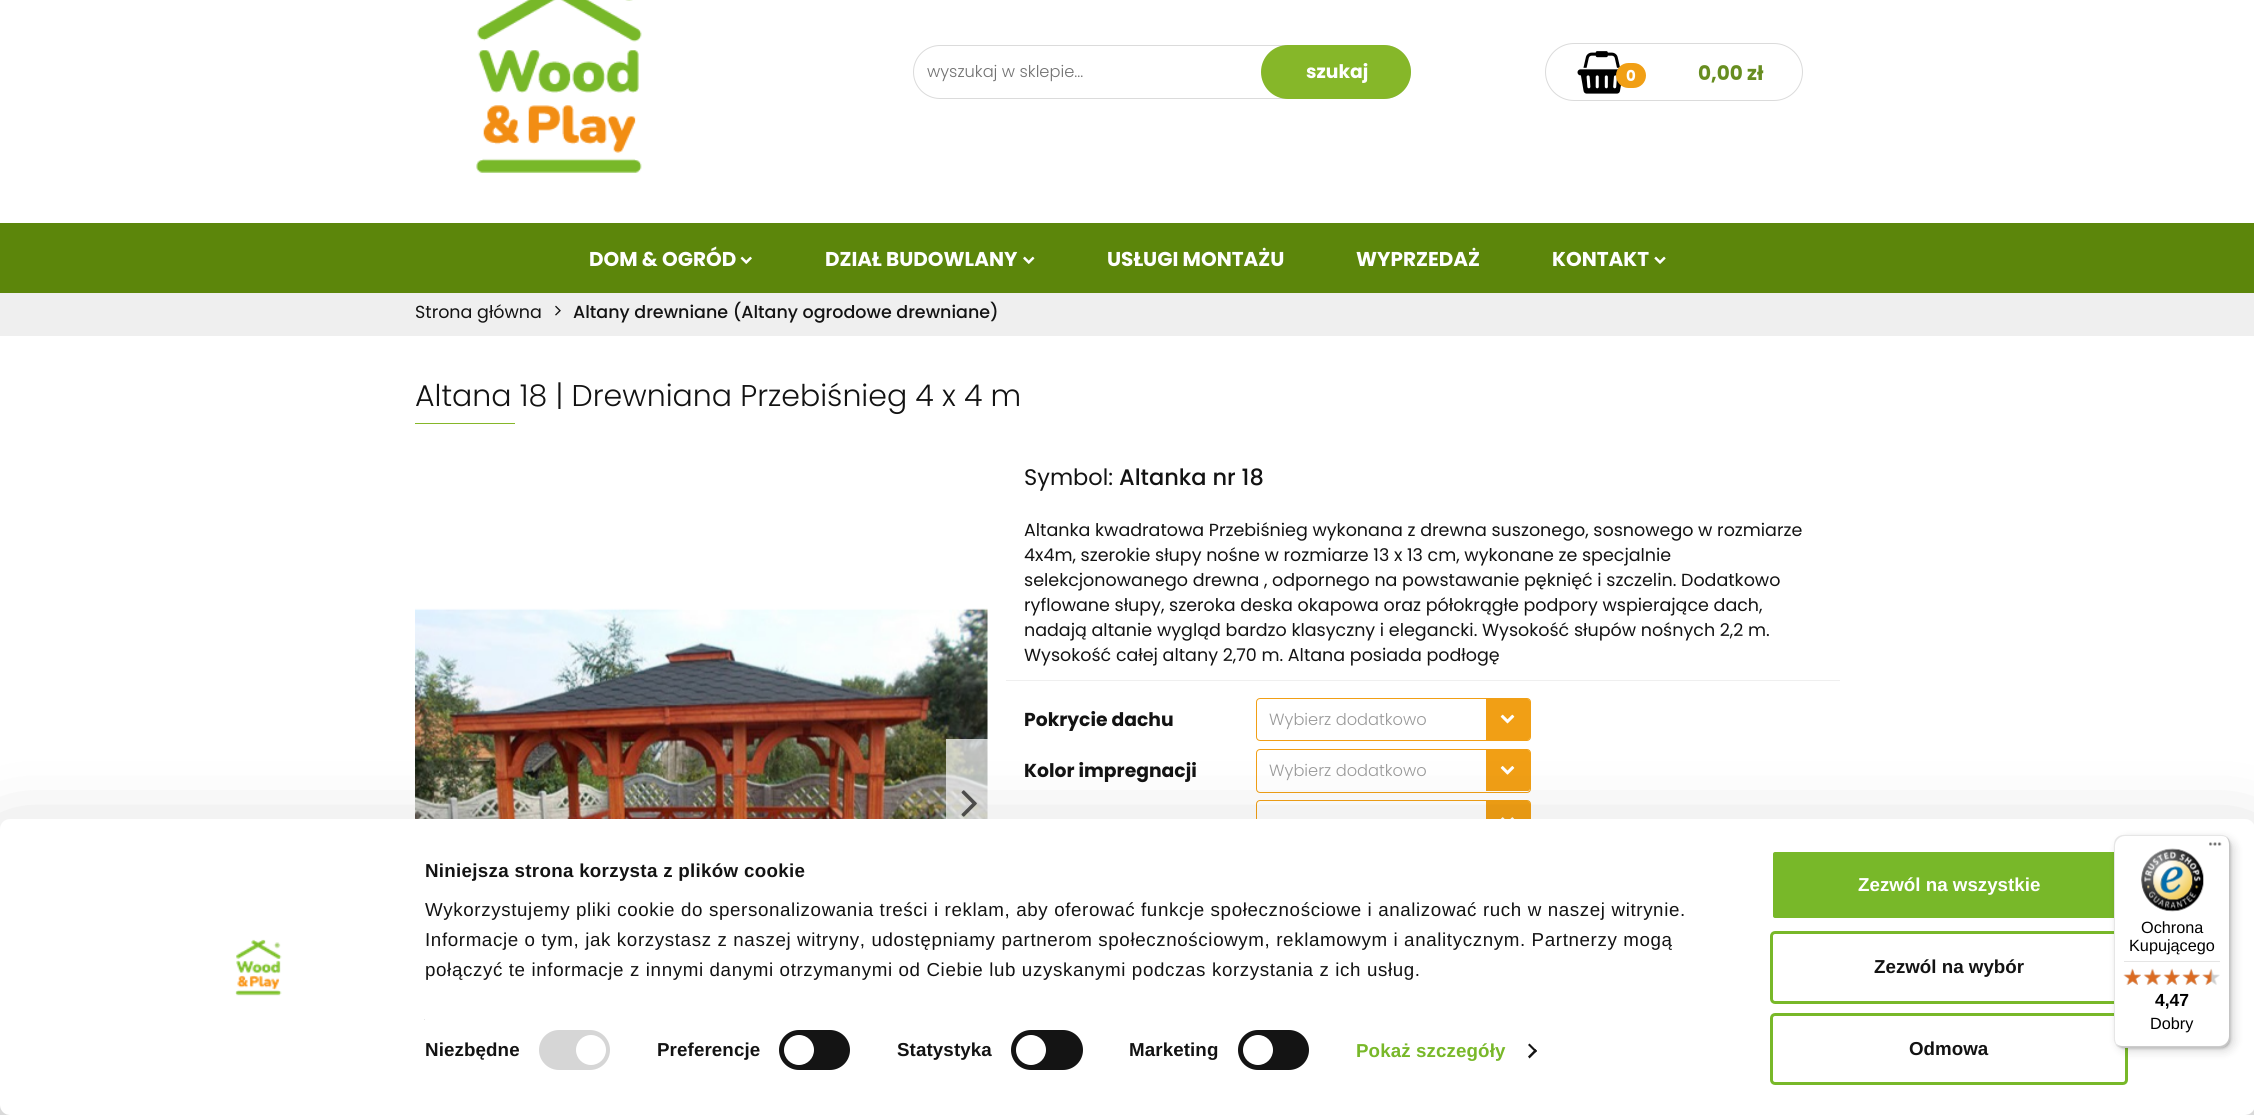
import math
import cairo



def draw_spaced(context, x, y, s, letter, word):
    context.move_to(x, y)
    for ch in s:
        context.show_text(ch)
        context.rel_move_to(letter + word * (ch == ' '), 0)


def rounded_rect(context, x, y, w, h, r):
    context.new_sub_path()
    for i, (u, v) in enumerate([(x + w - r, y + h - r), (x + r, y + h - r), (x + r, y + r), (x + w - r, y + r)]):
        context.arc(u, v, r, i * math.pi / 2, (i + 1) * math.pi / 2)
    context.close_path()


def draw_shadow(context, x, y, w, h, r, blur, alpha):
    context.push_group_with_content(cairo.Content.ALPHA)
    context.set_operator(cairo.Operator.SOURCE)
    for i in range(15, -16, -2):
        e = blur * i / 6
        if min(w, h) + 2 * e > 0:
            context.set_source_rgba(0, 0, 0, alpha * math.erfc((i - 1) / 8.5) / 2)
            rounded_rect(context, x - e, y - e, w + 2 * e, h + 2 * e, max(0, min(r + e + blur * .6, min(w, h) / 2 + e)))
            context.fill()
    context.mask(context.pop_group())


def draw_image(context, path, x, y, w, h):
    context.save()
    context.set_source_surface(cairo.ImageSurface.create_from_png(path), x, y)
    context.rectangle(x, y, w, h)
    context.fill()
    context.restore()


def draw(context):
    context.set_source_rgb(1, 1, 1)
    context.paint()
    draw_image(context, "images/1.png", 476, 0, 166, 173)
    rounded_rect(context, 913.5, 45.5, 497, 53, 26.5)
    context.set_source_rgb(219 / 255, 219 / 255, 219 / 255)
    context.set_line_width(1)
    context.stroke()
    context.set_source_rgb(134 / 255, 183 / 255, 41 / 255)
    rounded_rect(context, 1263, 47, 146, 50, 25)
    context.fill_preserve()
    context.set_line_width(4)
    context.stroke()
    rounded_rect(context, 1545.5, 43.5, 257, 57, 28.5)
    context.set_source_rgb(219 / 255, 219 / 255, 219 / 255)
    context.set_line_width(1)
    context.stroke()
    draw_image(context, "images/2.png", 1577, 51, 44, 43)
    context.set_source_rgb(241 / 255, 159 / 255, 21 / 255)
    rounded_rect(context, 1616, 63, 30, 25, 12.5)
    context.fill()
    context.set_source_rgb(92 / 255, 134 / 255, 11 / 255)
    context.rectangle(0, 223, 2254, 70)
    context.fill()
    draw_image(context, "images/3.png", 740, 256, 12, 8)
    draw_image(context, "images/4.png", 1023, 256, 12, 8)
    draw_image(context, "images/5.png", 1654, 256, 12, 8)
    context.set_source_rgb(239 / 255, 239 / 255, 239 / 255)
    context.rectangle(0, 293, 2254, 43)
    context.fill()
    draw_image(context, "images/6.png", 555, 305, 6, 11)
    context.set_source_rgb(134 / 255, 183 / 255, 41 / 255)
    context.rectangle(415, 423, 100, 1)
    context.fill()
    draw_image(context, "images/7.png", 415, 608, 573, 211)
    context.set_source_rgba(1, 1, 1, 0.7)
    context.rectangle(946, 739, 42, 80)
    context.fill()
    draw_image(context, "images/8.png", 961, 790, 16, 27)
    context.set_source_rgb(239 / 255, 239 / 255, 239 / 255)
    context.rectangle(1006, 680, 834, 1)
    context.fill()
    rounded_rect(context, 1256.5, 698.5, 274, 42, 3.5)
    context.set_source_rgb(241 / 255, 159 / 255, 21 / 255)
    context.stroke()
    context.new_path()
    context.move_to(1486, 699)
    context.line_to(1527.5, 699)
    context.curve_to(1529, 699, 1530, 700, 1530, 701.5)
    context.line_to(1530, 737.5)
    context.curve_to(1530, 739, 1529, 740, 1527.5, 740)
    context.line_to(1486, 740)
    context.close_path()
    context.fill()
    draw_image(context, "images/9.png", 1500, 714, 15, 10)
    rounded_rect(context, 1256.5, 749.5, 274, 43, 3.5)
    context.stroke()
    context.new_path()
    context.move_to(1486, 750)
    context.line_to(1527.5, 750)
    context.curve_to(1529, 750, 1530, 751, 1530, 752.5)
    context.line_to(1530, 788.5)
    context.curve_to(1530, 790, 1529, 791, 1527.5, 791)
    context.line_to(1486, 791)
    context.close_path()
    context.fill()
    draw_image(context, "images/10.png", 1500, 766, 15, 9)
    rounded_rect(context, 1256.5, 800.5, 274, 43, 3.5)
    context.stroke()
    context.new_path()
    context.move_to(1486, 801)
    context.line_to(1527.5, 801)
    context.curve_to(1529, 801, 1530, 802, 1530, 803.5)
    context.line_to(1530, 840.5)
    context.curve_to(1530, 842, 1529, 843, 1527.5, 843)
    context.line_to(1486, 843)
    context.close_path()
    context.fill()
    draw_image(context, "images/11.png", 1500, 817, 15, 2)
    context.set_source_rgb(0, 0, 0)
    draw_shadow(context, 0, 856, 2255, 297, 10, 44, 0.3)
    context.set_source_rgb(1, 1, 1)
    rounded_rect(context, 0, 819, 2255, 296, 10)
    context.fill()
    draw_image(context, "images/12.png", 235, 939, 47, 57)
    context.set_source_rgb(229 / 255, 229 / 255, 229 / 255)
    context.rectangle(424, 1019, 1, 1)
    context.fill()
    context.set_source_rgb(214 / 255, 214 / 255, 214 / 255)
    rounded_rect(context, 539, 1030, 71, 40, 20)
    context.fill()
    context.set_source_rgb(1, 1, 1)
    context.arc(591, 1050, 15, 0, 2 * math.pi)
    context.fill()
    context.set_source_rgb(20 / 255, 20 / 255, 20 / 255)
    rounded_rect(context, 779, 1030, 71, 40, 20)
    context.fill()
    context.set_source_rgb(1, 1, 1)
    context.arc(799, 1050, 15, 0, 2 * math.pi)
    context.fill()
    context.set_source_rgb(20 / 255, 20 / 255, 20 / 255)
    rounded_rect(context, 1011, 1030, 72, 40, 20)
    context.fill()
    context.set_source_rgb(1, 1, 1)
    context.arc(1031, 1050, 15, 0, 2 * math.pi)
    context.fill()
    context.set_source_rgb(20 / 255, 20 / 255, 20 / 255)
    rounded_rect(context, 1238, 1030, 71, 40, 20)
    context.fill()
    context.set_source_rgb(1, 1, 1)
    context.arc(1258, 1050, 15, 0, 2 * math.pi)
    context.fill()
    context.set_source_rgb(20 / 255, 20 / 255, 20 / 255)
    context.new_path()
    context.move_to(1529.5, 1043.5)
    context.line_to(1537, 1051)
    context.line_to(1535.5, 1052.5)
    context.line_to(1528, 1045)
    context.close_path()
    context.fill()
    context.new_path()
    context.move_to(1535.5, 1049)
    context.line_to(1537, 1051)
    context.line_to(1529.5, 1058.5)
    context.line_to(1528, 1056.5)
    context.close_path()
    context.fill()
    context.set_source_rgb(120 / 255, 184 / 255, 41 / 255)
    rounded_rect(context, 1771.5, 850.5, 355, 69, 3.5)
    context.fill_preserve()
    context.set_source_rgb(1, 1, 1)
    context.set_line_width(3)
    context.stroke()
    rounded_rect(context, 1771.5, 932.5, 355, 70, 3.5)
    context.set_source_rgb(120 / 255, 184 / 255, 41 / 255)
    context.stroke()
    rounded_rect(context, 1771.5, 1014.5, 355, 69, 3.5)
    context.stroke()
    context.set_source_rgb(0, 0, 0)
    draw_shadow(context, 2118, 839, 116, 212, 10, 5, 0.15)
    draw_shadow(context, 2115, 836, 116, 213, 10, 1, 0.15)
    context.set_source_rgb(1, 1, 1)
    rounded_rect(context, 2114, 835, 116, 213, 10)
    context.fill()
    context.set_source_rgba(0, 0, 0, 0.1)
    context.new_path()
    context.move_to(2125, 836)
    context.line_to(2221, 836)
    context.curve_to(2224, 836, 2226, 837, 2228, 838)
    context.curve_to(2226, 836, 2223, 835, 2220, 835)
    context.line_to(2124, 835)
    context.curve_to(2118, 835, 2114, 839, 2114, 845)
    context.line_to(2114, 1038)
    context.curve_to(2114, 1041, 2115, 1044, 2118, 1046)
    context.curve_to(2116, 1044, 2115, 1041, 2115, 1039)
    context.line_to(2115, 846)
    context.curve_to(2115, 841, 2119, 836, 2125, 836)
    context.close_path()
    context.fill()
    context.set_source_rgba(0, 0, 0, 0.2)
    context.new_path()
    context.move_to(2116, 1044)
    context.curve_to(2118, 1046, 2121, 1048, 2124, 1048)
    context.line_to(2220, 1048)
    context.curve_to(2226, 1048, 2230, 1044, 2230, 1038)
    context.line_to(2230, 845)
    context.curve_to(2230, 842, 2229, 839, 2227, 837)
    context.curve_to(2228, 839, 2229, 841, 2229, 844)
    context.line_to(2229, 1036)
    context.curve_to(2229, 1042, 2224, 1046, 2219, 1046)
    context.line_to(2122, 1046)
    context.curve_to(2120, 1046, 2118, 1045, 2116, 1044)
    context.close_path()
    context.fill()
    context.set_source_rgba(50 / 255, 50 / 255, 50 / 255, 0.2)
    context.new_path()
    context.move_to(2116, 1045)
    context.curve_to(2118, 1047, 2121, 1048, 2124, 1048)
    context.line_to(2220, 1048)
    context.curve_to(2226, 1048, 2230, 1044, 2230, 1038)
    context.line_to(2230, 845)
    context.curve_to(2230, 842, 2229, 839, 2226, 837)
    context.curve_to(2228, 839, 2229, 842, 2229, 844)
    context.line_to(2229, 1037)
    context.curve_to(2229, 1042, 2225, 1047, 2219, 1047)
    context.line_to(2123, 1047)
    context.curve_to(2120, 1047, 2118, 1046, 2116, 1045)
    context.close_path()
    context.fill()
    context.set_source_rgba(1, 1, 1, 0.3)
    context.new_path()
    context.move_to(2115, 1043)
    context.curve_to(2117, 1046, 2120, 1048, 2124, 1048)
    context.line_to(2220, 1048)
    context.curve_to(2226, 1048, 2230, 1044, 2230, 1038)
    context.line_to(2230, 845)
    context.curve_to(2230, 842, 2229, 839, 2226, 837)
    context.curve_to(2228, 839, 2229, 842, 2229, 844)
    context.line_to(2229, 1037)
    context.curve_to(2229, 1042, 2225, 1047, 2219, 1047)
    context.line_to(2123, 1047)
    context.curve_to(2120, 1047, 2117, 1045, 2115, 1043)
    context.close_path()
    context.fill()
    draw_image(context, "images/13.png", 2209, 842, 13, 4)
    draw_image(context, "images/14.png", 2141, 848, 63, 64)
    context.set_source_rgb(229 / 255, 229 / 255, 229 / 255)
    context.rectangle(2124, 961, 96, 1)
    context.fill()
    draw_image(context, "images/20.png", 2123, 969, 18, 16)
    draw_image(context, "images/15.png", 2123, 968, 18, 17)
    draw_image(context, "images/21.png", 2144, 969, 17, 16)
    draw_image(context, "images/16.png", 2143, 968, 19, 17)
    draw_image(context, "images/22.png", 2164, 969, 16, 16)
    draw_image(context, "images/17.png", 2163, 968, 17, 17)
    draw_image(context, "images/23.png", 2183, 969, 17, 16)
    draw_image(context, "images/18.png", 2182, 968, 18, 17)
    draw_image(context, "images/24.png", 2202, 969, 18, 16)
    draw_image(context, "images/19.png", 2202, 968, 10, 17)
    context.select_font_face("Poppins Light")
    context.set_font_size(16.25)
    context.set_source_rgb(113 / 255, 113 / 255, 113 / 255)
    context.move_to(927, 77)
    context.show_text("wyszukaj w sklepie...")
    context.select_font_face("Poppins", cairo.FontSlant.NORMAL, cairo.FontWeight.BOLD)
    context.set_font_size(18.75)
    context.set_source_rgb(1, 1, 1)
    context.move_to(1306, 78)
    context.show_text("szukaj")
    context.set_font_size(15)
    context.move_to(1626, 81)
    context.show_text("0")
    context.set_font_size(20)
    context.set_source_rgb(103 / 255, 141 / 255, 32 / 255)
    context.move_to(1698, 80)
    context.show_text("0,00 zł")
    context.set_source_rgb(1, 1, 1)
    context.move_to(589, 266)
    context.show_text("DOM & OGRÓD")
    context.move_to(825, 266)
    context.show_text("DZIAŁ BUDOWLANY")
    context.move_to(1107, 266)
    context.show_text("USŁUGI MONTAŻU")
    context.move_to(1356, 266)
    context.show_text("WYPRZEDAŻ")
    context.move_to(1552, 266)
    context.show_text("KONTAKT")
    context.select_font_face("Poppins")
    context.set_font_size(17.5)
    context.set_source_rgb(19 / 255, 19 / 255, 19 / 255)
    context.move_to(415, 318)
    context.show_text("Strona główna")
    context.select_font_face("Poppins Medium")
    context.move_to(573, 318)
    context.show_text("Altany drewniane (Altany ogrodowe drewniane)")
    context.select_font_face("Poppins Light")
    context.set_font_size(30)
    context.move_to(415, 406)
    context.show_text("Altana 18 | Drewniana Przebiśnieg 4 x 4 m")
    context.select_font_face("Poppins")
    context.set_font_size(22.5)
    context.move_to(1024, 485)
    context.show_text("Symbol:")
    context.select_font_face("Poppins Medium")
    context.move_to(1119, 485)
    context.show_text("Altanka nr 18")
    context.select_font_face("Poppins")
    context.set_font_size(17.5)
    context.move_to(1024, 536)
    context.show_text("Altanka kwadratowa Przebiśnieg wykonana z drewna suszonego, sosnowego w rozmiarze")
    context.move_to(1024, 561)
    context.show_text("4x4m, szerokie słupy nośne w rozmiarze 13 x 13 cm, wykonane ze specjalnie")
    context.move_to(1024, 586)
    context.show_text("selekcjonowanego drewna , odpornego na powstawanie pęknięć i szczelin. Dodatkowo")
    context.move_to(1024, 611)
    context.show_text("ryflowane słupy, szeroka deska okapowa oraz półokrągłe podpory wspierające dach,")
    context.move_to(1024, 636)
    context.show_text("nadają altanie wygląd bardzo klasyczny i elegancki. Wysokość słupów nośnych 2,2 m.")
    context.move_to(1024, 661)
    context.show_text("Wysokość całej altany 2,70 m. Altana posiada podłogę")
    context.select_font_face("Poppins", cairo.FontSlant.NORMAL, cairo.FontWeight.BOLD)
    context.set_font_size(18.75)
    context.move_to(1024, 726)
    context.show_text("Pokrycie dachu")
    context.select_font_face("Poppins Light")
    context.set_font_size(16.25)
    context.set_source_rgb(153 / 255, 153 / 255, 153 / 255)
    context.move_to(1269, 725)
    context.show_text("Wybierz dodatkowo")
    context.select_font_face("Poppins", cairo.FontSlant.NORMAL, cairo.FontWeight.BOLD)
    context.set_font_size(18.75)
    context.set_source_rgb(19 / 255, 19 / 255, 19 / 255)
    context.move_to(1024, 777)
    context.show_text("Kolor impregnacji")
    context.select_font_face("Poppins Light")
    context.set_font_size(16.25)
    context.set_source_rgb(153 / 255, 153 / 255, 153 / 255)
    context.move_to(1269, 776)
    context.show_text("Wybierz dodatkowo")
    context.select_font_face("Liberation Sans", cairo.FontSlant.NORMAL, cairo.FontWeight.BOLD)
    context.set_font_size(18.75)
    context.set_source_rgb(19 / 255, 19 / 255, 19 / 255)
    draw_spaced(context, 425, 877, "Niniejsza strona korzysta z plików cookie", 0.3, 0)
    context.select_font_face("Liberation Sans")
    draw_spaced(context, 425, 916, "Wykorzystujemy pliki cookie do spersonalizowania treści i reklam, aby oferować funkcje społecznościowe i analizować ruch w naszej witrynie.", 0.62, 0)
    draw_spaced(context, 425, 946, "Informacje o tym, jak korzystasz z naszej witryny, udostępniamy partnerom społecznościowym, reklamowym i analitycznym. Partnerzy mogą", 0.62, 0)
    draw_spaced(context, 425, 976, "połączyć te informacje z innymi danymi otrzymanymi od Ciebie lub uzyskanymi podczas korzystania z ich usług.", 0.62, 0)
    context.select_font_face("Liberation Sans", cairo.FontSlant.NORMAL, cairo.FontWeight.BOLD)
    draw_spaced(context, 425, 1056, "Niezbędne", 0.1, 0)
    draw_spaced(context, 657, 1056, "Preferencje", 0.1, 0)
    draw_spaced(context, 897, 1056, "Statystyka", 0.1, 0)
    draw_spaced(context, 1129, 1056, "Marketing", 0.1, 0)
    context.set_source_rgb(120 / 255, 184 / 255, 41 / 255)
    draw_spaced(context, 1356, 1057, "Pokaż szczegóły", 0.1, 0)
    context.set_source_rgb(1, 1, 1)
    context.move_to(1858, 891)
    context.show_text("Zezwól na wszystkie")
    context.set_source_rgb(19 / 255, 19 / 255, 19 / 255)
    context.move_to(1874, 973)
    context.show_text("Zezwól na wybór")
    context.move_to(1909, 1055)
    context.show_text("Odmowa")
    context.select_font_face("Liberation Sans")
    context.set_font_size(16.25)
    context.set_source_rgb(0, 0, 0)
    context.move_to(2141, 933)
    context.show_text("Ochrona")
    context.move_to(2129, 951)
    context.show_text("Kupującego")
    context.select_font_face("Liberation Sans", cairo.FontSlant.NORMAL, cairo.FontWeight.BOLD)
    context.set_font_size(17.5)
    context.move_to(2155, 1006)
    context.show_text("4,47")
    context.select_font_face("Liberation Sans")
    context.set_font_size(16.25)
    context.move_to(2150, 1029)
    context.show_text("Dobry")


surface = cairo.ImageSurface(cairo.Format.RGB24, 2254, 1115)
context = cairo.Context(surface)
options = cairo.FontOptions()
options.set_hint_metrics(cairo.HintMetrics.OFF)
options.set_hint_style(cairo.HintStyle.NONE)
context.set_font_options(options)
context.set_miter_limit(4)
draw(context)
surface.write_to_png("out.png")
